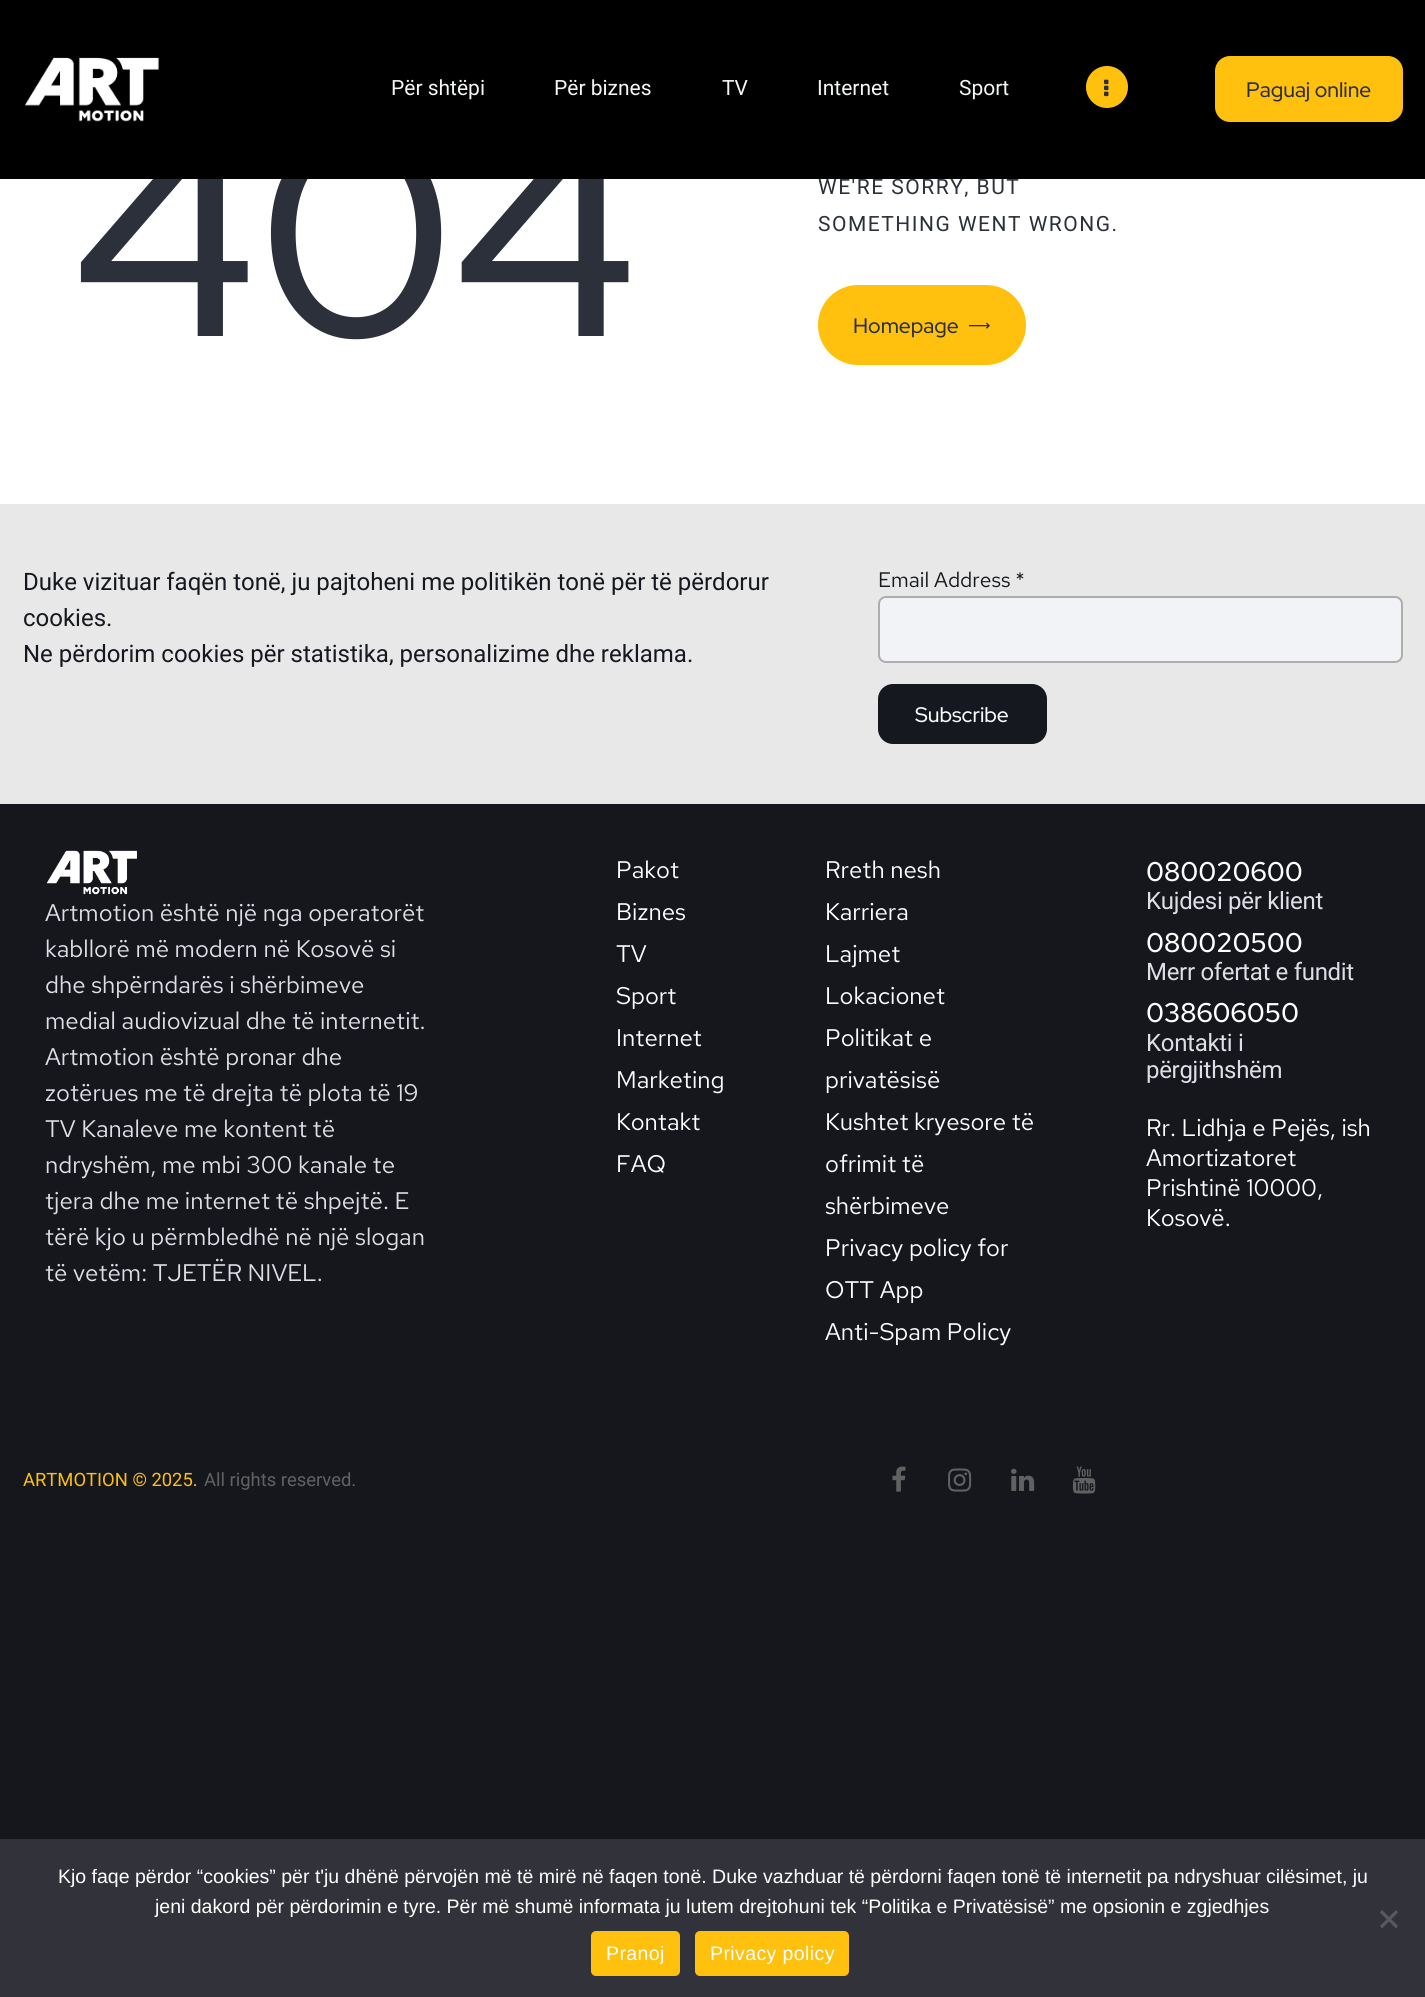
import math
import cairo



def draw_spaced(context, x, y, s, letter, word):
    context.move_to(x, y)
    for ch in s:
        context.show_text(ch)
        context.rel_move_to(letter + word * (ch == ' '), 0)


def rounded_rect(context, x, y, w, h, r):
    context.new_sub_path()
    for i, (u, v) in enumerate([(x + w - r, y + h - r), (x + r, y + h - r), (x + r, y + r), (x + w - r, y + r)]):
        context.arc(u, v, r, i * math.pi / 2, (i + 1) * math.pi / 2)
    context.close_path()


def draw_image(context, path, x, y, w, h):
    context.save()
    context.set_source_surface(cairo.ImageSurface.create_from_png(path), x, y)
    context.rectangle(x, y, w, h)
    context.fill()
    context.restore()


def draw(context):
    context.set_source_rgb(21 / 255, 23 / 255, 29 / 255)
    context.paint()
    context.set_source_rgb(1, 1, 1)
    context.rectangle(0, 179, 1425, 325)
    context.fill()
    context.set_source_rgb(1, 193 / 255, 13 / 255)
    rounded_rect(context, 818, 285, 208, 80, 40)
    context.fill()
    draw_image(context, "images/3.png", 969, 322, 21, 7)
    context.set_source_rgb(232 / 255, 232 / 255, 232 / 255)
    context.rectangle(0, 504, 1425, 300)
    context.fill()
    context.set_source_rgb(242 / 255, 243 / 255, 247 / 255)
    rounded_rect(context, 879, 597, 523, 65, 7)
    context.fill_preserve()
    context.set_source_rgb(173 / 255, 173 / 255, 173 / 255)
    context.stroke()
    context.set_source_rgb(21 / 255, 24 / 255, 30 / 255)
    rounded_rect(context, 878, 684, 169, 60, 15)
    context.fill()
    draw_image(context, "images/4.png", 46, 850, 91, 45)
    draw_image(context, "images/5.png", 892, 1466, 14, 26)
    draw_image(context, "images/6.png", 948, 1468, 24, 24)
    draw_image(context, "images/7.png", 1011, 1468, 24, 23)
    draw_image(context, "images/8.png", 1072, 1466, 24, 28)
    context.set_source_rgb(50 / 255, 50 / 255, 58 / 255)
    context.rectangle(0, 1839, 1425, 158)
    context.fill()
    context.set_source_rgb(89 / 255, 89 / 255, 93 / 255)
    context.new_path()
    context.move_to(1396, 1910)
    context.line_to(1398, 1912.5)
    context.line_to(1382, 1928.5)
    context.line_to(1380, 1926)
    context.close_path()
    context.fill()
    context.new_path()
    context.move_to(1380, 1912.5)
    context.line_to(1382, 1910)
    context.line_to(1398, 1926)
    context.line_to(1396, 1928.5)
    context.close_path()
    context.fill()
    context.set_source_rgb(1, 193 / 255, 13 / 255)
    rounded_rect(context, 591, 1931, 89, 45, 5)
    context.fill()
    rounded_rect(context, 695, 1931, 154, 45, 5)
    context.fill()
    context.select_font_face("Red Hat Display Medium")
    context.set_font_size(294)
    context.set_source_rgb(43 / 255, 48 / 255, 58 / 255)
    context.move_to(73, 336)
    context.show_text("404")
    context.select_font_face("Roboto")
    context.set_font_size(21)
    draw_spaced(context, 818, 194, "WE'RE SORRY, BUT", 1.5, 0)
    context.set_source_rgb(0, 0, 0)
    context.rectangle(0, 0, 1425, 179)
    context.fill()
    context.set_source_rgb(243 / 255, 245 / 255, 247 / 255)
    context.move_to(391, 95)
    context.show_text("Për shtëpi")
    context.move_to(554, 95)
    context.show_text("Për biznes")
    context.move_to(722, 95)
    context.show_text("TV")
    context.move_to(817, 95)
    context.show_text("Internet")
    context.move_to(959, 95)
    context.show_text("Sport")
    context.set_source_rgb(1, 193 / 255, 13 / 255)
    context.new_path()
    context.arc(1107, 87, 21, 0, 2 * math.pi)
    context.fill()
    draw_image(context, "images/2.png", 1104, 79, 5, 18)
    rounded_rect(context, 1215, 56, 188, 66, 15)
    context.fill()
    context.select_font_face("Red Hat Display Medium")
    context.set_source_rgb(43 / 255, 48 / 255, 58 / 255)
    context.move_to(1246, 97)
    context.show_text("Paguaj online")
    draw_image(context, "images/1.png", 25, 57, 134, 65)
    context.select_font_face("Roboto")
    draw_spaced(context, 818, 231, "SOMETHING WENT WRONG.", 1.5, 0)
    context.select_font_face("Red Hat Display Medium")
    context.move_to(853, 333)
    context.show_text("Homepage")
    context.select_font_face("Roboto")
    context.set_font_size(24)
    context.set_source_rgb(21 / 255, 24 / 255, 30 / 255)
    context.move_to(23, 590)
    context.show_text("Duke vizituar faqën tonë, ju pajtoheni me politikën tonë për të përdorur")
    context.move_to(23, 626)
    context.show_text("cookies.")
    context.move_to(23, 662)
    context.show_text("Ne përdorim cookies për statistika, personalizime dhe reklama.")
    context.select_font_face("Red Hat Text")
    context.set_font_size(21)
    context.move_to(878, 587)
    context.show_text("Email Address *")
    context.select_font_face("Red Hat Display Medium")
    context.set_source_rgb(1, 1, 1)
    context.move_to(915, 722)
    context.show_text("Subscribe")
    context.select_font_face("Red Hat Text")
    context.set_font_size(24)
    context.set_source_rgb(222 / 255, 223 / 255, 229 / 255)
    context.move_to(45, 921)
    context.show_text("Artmotion është një nga operatorët")
    context.move_to(45, 957)
    context.show_text("kabllorë më modern në Kosovë si")
    context.move_to(45, 993)
    context.show_text("dhe shpërndarës i shërbimeve")
    context.move_to(45, 1029)
    context.show_text("medial audiovizual dhe të internetit.")
    context.move_to(45, 1065)
    context.show_text("Artmotion është pronar dhe")
    context.move_to(45, 1101)
    context.show_text("zotërues me të drejta të plota të 19")
    context.move_to(45, 1137)
    context.show_text("TV Kanaleve me kontent të")
    context.move_to(45, 1173)
    context.show_text("ndryshëm, me mbi 300 kanale te")
    context.move_to(45, 1209)
    context.show_text("tjera dhe me internet të shpejtë. E")
    context.move_to(45, 1245)
    context.show_text("tërë kjo u përmbledhë në një slogan")
    context.move_to(45, 1281)
    context.show_text("të vetëm: TJETËR NIVEL.")
    context.set_source_rgb(1, 1, 1)
    context.move_to(616, 878)
    context.show_text("Pakot")
    context.move_to(616, 920)
    context.show_text("Biznes")
    context.move_to(616, 962)
    context.show_text("TV")
    context.move_to(616, 1004)
    context.show_text("Sport")
    context.move_to(616, 1046)
    context.show_text("Internet")
    context.move_to(616, 1088)
    context.show_text("Marketing")
    context.move_to(616, 1130)
    context.show_text("Kontakt")
    context.move_to(616, 1172)
    context.show_text("FAQ")
    context.move_to(825, 878)
    context.show_text("Rreth nesh")
    context.move_to(825, 920)
    context.show_text("Karriera")
    context.move_to(825, 962)
    context.show_text("Lajmet")
    context.move_to(825, 1004)
    context.show_text("Lokacionet")
    context.move_to(825, 1046)
    context.show_text("Politikat e")
    context.move_to(825, 1088)
    context.show_text("privatësisë")
    context.move_to(825, 1130)
    context.show_text("Kushtet kryesore të")
    context.move_to(825, 1172)
    context.show_text("ofrimit të")
    context.move_to(825, 1214)
    context.show_text("shërbimeve")
    context.move_to(825, 1256)
    context.show_text("Privacy policy for")
    context.move_to(825, 1298)
    context.show_text("OTT App")
    context.move_to(825, 1340)
    context.show_text("Anti-Spam Policy")
    context.select_font_face("Red Hat Text Medium")
    context.set_font_size(27)
    context.move_to(1146, 881)
    context.show_text("080020600")
    context.select_font_face("Roboto")
    context.set_font_size(24)
    context.set_source_rgb(222 / 255, 223 / 255, 229 / 255)
    draw_spaced(context, 1146, 909, "Kujdesi për klient", -0.3, 0)
    context.select_font_face("Red Hat Text Medium")
    context.set_font_size(27)
    context.set_source_rgb(1, 1, 1)
    context.move_to(1146, 952)
    context.show_text("080020500")
    context.select_font_face("Roboto")
    context.set_font_size(24)
    context.set_source_rgb(222 / 255, 223 / 255, 229 / 255)
    draw_spaced(context, 1146, 980, "Merr ofertat e fundit", -0.3, 0)
    context.select_font_face("Red Hat Text Medium")
    context.set_font_size(27)
    context.set_source_rgb(1, 1, 1)
    context.move_to(1146, 1022)
    context.show_text("038606050")
    context.select_font_face("Roboto")
    context.set_font_size(24)
    context.set_source_rgb(222 / 255, 223 / 255, 229 / 255)
    draw_spaced(context, 1146, 1051, "Kontakti i", -0.3, 0)
    draw_spaced(context, 1146, 1078, "përgjithshëm", -0.3, 0)
    context.select_font_face("Red Hat Text")
    context.set_source_rgb(1, 1, 1)
    context.move_to(1146, 1136)
    context.show_text("Rr. Lidhja e Pejës, ish")
    context.move_to(1146, 1166)
    context.show_text("Amortizatoret")
    context.move_to(1146, 1196)
    context.show_text("Prishtinë 10000,")
    context.move_to(1146, 1226)
    context.show_text("Kosovë.")
    context.select_font_face("Roboto")
    context.set_font_size(18.4)
    context.set_source_rgb(252 / 255, 192 / 255, 21 / 255)
    context.move_to(23, 1486)
    context.show_text("ARTMOTION © 2025.")
    context.set_source_rgb(96 / 255, 97 / 255, 97 / 255)
    context.move_to(204, 1486)
    context.show_text("All rights reserved.")
    context.select_font_face("Liberation Sans")
    context.set_font_size(19.5)
    context.set_source_rgb(1, 1, 1)
    context.move_to(58, 1883)
    context.show_text("Kjo faqe përdor “cookies” për t'ju dhënë përvojën më të mirë në faqen tonë. Duke vazhduar të përdorni faqen tonë të internetit pa ndryshuar cilësimet, ju")
    context.move_to(155, 1913)
    context.show_text("jeni dakord për përdorimin e tyre. Për më shumë informata ju lutem drejtohuni tek “Politika e Privatësisë” me opsionin e zgjedhjes")
    draw_spaced(context, 606, 1960, "Pranoj", 0.4, 0)
    draw_spaced(context, 710, 1960, "Privacy policy", 0.4, 0)


surface = cairo.ImageSurface(cairo.Format.RGB24, 1425, 1997)
context = cairo.Context(surface)
options = cairo.FontOptions()
options.set_hint_metrics(cairo.HintMetrics.OFF)
options.set_hint_style(cairo.HintStyle.NONE)
context.set_font_options(options)
context.set_miter_limit(4)
draw(context)
surface.write_to_png("out.png")
